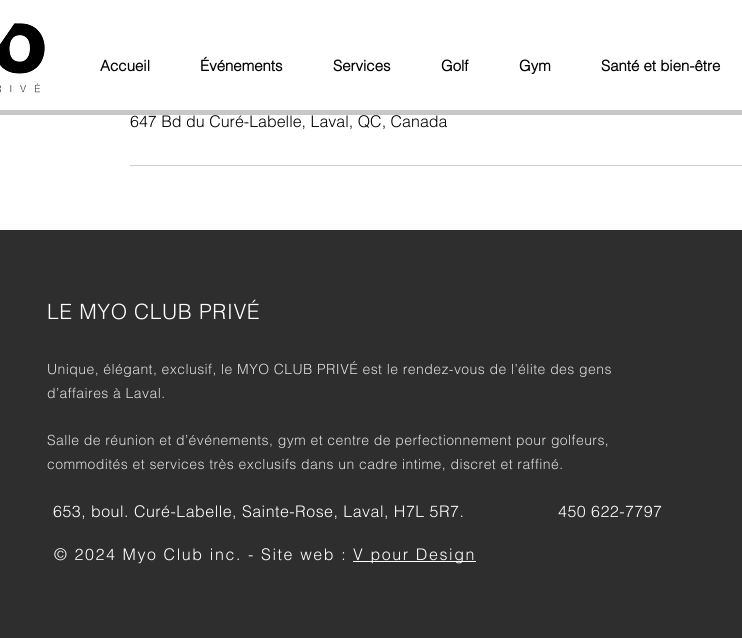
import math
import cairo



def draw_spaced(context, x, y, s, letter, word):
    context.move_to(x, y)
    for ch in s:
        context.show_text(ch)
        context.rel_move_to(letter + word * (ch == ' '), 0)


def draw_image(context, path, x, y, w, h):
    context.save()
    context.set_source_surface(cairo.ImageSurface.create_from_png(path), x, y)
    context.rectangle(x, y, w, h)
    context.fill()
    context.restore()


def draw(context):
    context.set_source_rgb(1, 1, 1)
    context.paint()
    draw_image(context, "images/1.png", 0, 23, 45, 70)
    context.set_source_rgb(199 / 255, 199 / 255, 199 / 255)
    context.rectangle(0, 110, 742, 5)
    context.fill()
    context.set_source_rgb(204 / 255, 204 / 255, 204 / 255)
    context.rectangle(130, 165, 612, 1)
    context.fill()
    context.set_source_rgb(47 / 255, 46 / 255, 46 / 255)
    context.rectangle(0, 230, 742, 408)
    context.fill()
    context.set_source_rgb(1, 1, 1)
    context.rectangle(353, 561, 123, 1)
    context.fill()
    context.select_font_face("helvetica", cairo.FontSlant.NORMAL, cairo.FontWeight.BOLD)
    context.set_font_size(15)
    context.set_source_rgb(0, 0, 0)
    context.move_to(100, 71)
    context.show_text("Accueil")
    context.move_to(200, 71)
    context.show_text("Événements")
    context.move_to(333, 71)
    context.show_text("Services")
    context.move_to(441, 71)
    context.show_text("Golf")
    context.move_to(519, 71)
    context.show_text("Gym")
    context.move_to(601, 71)
    context.show_text("Santé et bien-être")
    context.select_font_face("helvetica Light")
    context.set_font_size(16)
    context.move_to(130, 127)
    context.show_text("647 Bd du Curé-Labelle, Laval, QC, Canada")
    context.set_font_size(21)
    context.set_source_rgb(1, 1, 1)
    draw_spaced(context, 47, 319, "LE MYO CLUB PRIVÉ", 0.6, 0)
    context.set_font_size(14)
    context.set_source_rgb(219 / 255, 219 / 255, 219 / 255)
    draw_spaced(context, 47, 374, "Unique, élégant, exclusif, le MYO CLUB PRIVÉ est le rendez-vous de l’élite des gens", 0.42, 0)
    draw_spaced(context, 47, 398, "d’affaires à Laval.", 0.42, 0)
    draw_spaced(context, 47, 445, "Salle de réunion et d’événements, gym et centre de perfectionnement pour golfeurs,", 0.42, 0)
    draw_spaced(context, 47, 469, "commodités et services très exclusifs dans un cadre intime, discret et raffiné.", 0.42, 0)
    context.set_font_size(16)
    context.set_source_rgb(1, 1, 1)
    draw_spaced(context, 53, 517, "653, boul. Curé-Labelle, Sainte-Rose, Laval, H7L 5R7.", 0.48, 0)
    draw_spaced(context, 558, 517, "450 622-7797", 0.48, 0)
    draw_spaced(context, 54, 560, "© 2024 Myo Club inc. - Site web :", 1.6, 0)
    draw_spaced(context, 353, 560, "V pour Design", 1.6, 0)


surface = cairo.ImageSurface(cairo.Format.RGB24, 742, 638)
context = cairo.Context(surface)
options = cairo.FontOptions()
options.set_hint_metrics(cairo.HintMetrics.OFF)
options.set_hint_style(cairo.HintStyle.NONE)
context.set_font_options(options)
context.set_miter_limit(4)
draw(context)
surface.write_to_png("out.png")
